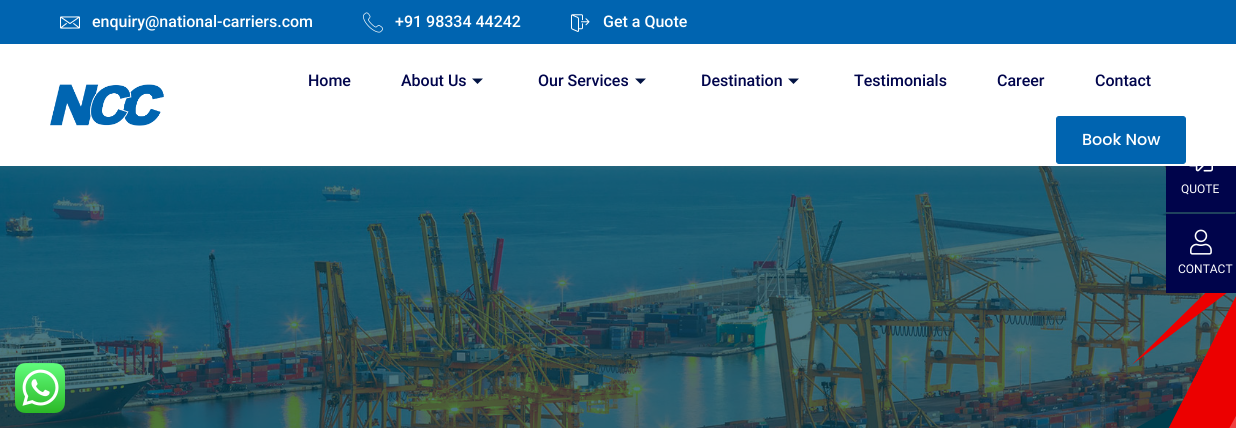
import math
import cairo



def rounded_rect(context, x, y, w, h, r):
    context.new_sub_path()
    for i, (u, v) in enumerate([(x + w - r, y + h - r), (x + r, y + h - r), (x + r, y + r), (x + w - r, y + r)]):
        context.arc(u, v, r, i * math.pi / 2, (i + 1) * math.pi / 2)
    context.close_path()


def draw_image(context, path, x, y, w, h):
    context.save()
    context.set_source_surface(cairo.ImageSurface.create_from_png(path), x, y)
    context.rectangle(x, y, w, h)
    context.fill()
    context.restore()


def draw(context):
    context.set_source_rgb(1, 1, 1)
    context.paint()
    context.set_source_rgb(0, 100 / 255, 176 / 255)
    context.rectangle(0, 0, 1236, 44)
    context.fill()
    draw_image(context, "images/1.png", 60, 16, 20, 13)
    draw_image(context, "images/2.png", 363, 12, 20, 21)
    draw_image(context, "images/3.png", 571, 14, 19, 18)
    draw_image(context, "images/4.png", 50, 84, 114, 42)
    context.set_source_rgb(2 / 255, 19 / 255, 67 / 255)
    context.new_path()
    context.move_to(472, 78.5)
    context.line_to(483, 78.5)
    context.line_to(477.5, 84)
    context.close_path()
    context.fill()
    context.new_path()
    context.move_to(635, 78.5)
    context.line_to(646, 78.5)
    context.line_to(640.5, 84)
    context.close_path()
    context.fill()
    context.new_path()
    context.move_to(788, 78.5)
    context.line_to(799, 78.5)
    context.line_to(793.5, 84)
    context.close_path()
    context.fill()
    context.set_source_rgb(0, 100 / 255, 176 / 255)
    rounded_rect(context, 1056.5, 116.5, 129, 47, 2.5)
    context.fill_preserve()
    context.set_line_width(1)
    context.stroke()
    draw_image(context, "images/5.png", 0, 166, 1236, 262)
    draw_image(context, "images/6.png", 1131, 293, 105, 135)
    context.set_source_rgb(0, 4 / 255, 75 / 255)
    context.rectangle(1166, 166, 70, 127)
    context.fill()
    draw_image(context, "images/7.png", 1189, 166, 24, 6)
    context.set_source_rgb(31 / 255, 66 / 255, 93 / 255)
    context.new_path()
    context.move_to(1166, 212)
    context.line_to(1236, 212)
    context.line_to(1235, 214)
    context.line_to(1166, 214)
    context.close_path()
    context.fill()
    draw_image(context, "images/8.png", 1190, 229, 22, 26)
    draw_image(context, "images/9.png", 15, 363, 50, 50)
    context.select_font_face("Roboto Medium")
    context.set_font_size(16)
    context.set_source_rgb(1, 1, 1)
    context.move_to(92, 27)
    context.show_text("enquiry@national-carriers.com")
    context.move_to(395, 27)
    context.show_text("+91 98334 44242")
    context.move_to(603, 27)
    context.show_text("Get a Quote")
    context.set_source_rgb(1 / 255, 5 / 255, 76 / 255)
    context.move_to(308, 86)
    context.show_text("Home")
    context.move_to(401, 86)
    context.show_text("About Us")
    context.move_to(538, 86)
    context.show_text("Our Services")
    context.move_to(701, 86)
    context.show_text("Destination")
    context.move_to(854, 86)
    context.show_text("Testimonials")
    context.move_to(997, 86)
    context.show_text("Career")
    context.move_to(1095, 86)
    context.show_text("Contact")
    context.select_font_face("Poppins Medium")
    context.set_source_rgb(1, 1, 1)
    context.move_to(1082, 145)
    context.show_text("Book Now")
    context.select_font_face("Roboto")
    context.set_font_size(12)
    context.move_to(1181, 193)
    context.show_text("QUOTE")
    context.move_to(1178, 273)
    context.show_text("CONTACT")


surface = cairo.ImageSurface(cairo.Format.RGB24, 1236, 428)
context = cairo.Context(surface)
options = cairo.FontOptions()
options.set_hint_metrics(cairo.HintMetrics.OFF)
options.set_hint_style(cairo.HintStyle.NONE)
context.set_font_options(options)
context.set_miter_limit(4)
draw(context)
surface.write_to_png("out.png")
